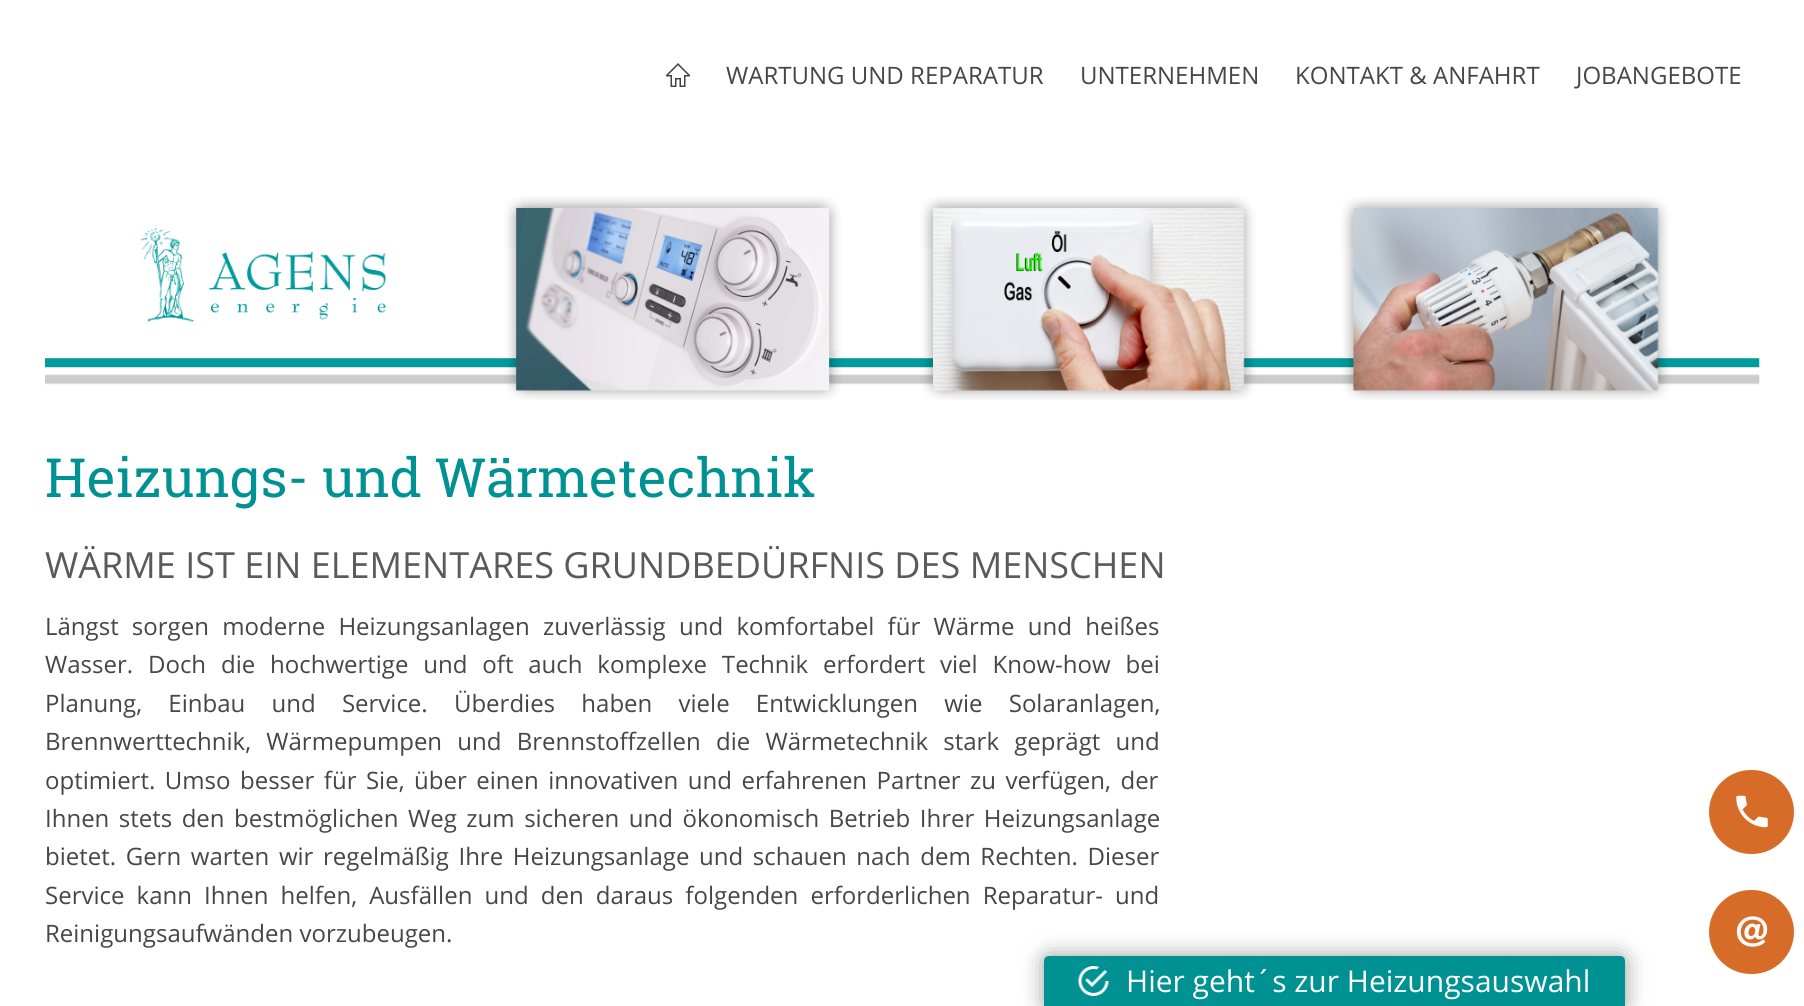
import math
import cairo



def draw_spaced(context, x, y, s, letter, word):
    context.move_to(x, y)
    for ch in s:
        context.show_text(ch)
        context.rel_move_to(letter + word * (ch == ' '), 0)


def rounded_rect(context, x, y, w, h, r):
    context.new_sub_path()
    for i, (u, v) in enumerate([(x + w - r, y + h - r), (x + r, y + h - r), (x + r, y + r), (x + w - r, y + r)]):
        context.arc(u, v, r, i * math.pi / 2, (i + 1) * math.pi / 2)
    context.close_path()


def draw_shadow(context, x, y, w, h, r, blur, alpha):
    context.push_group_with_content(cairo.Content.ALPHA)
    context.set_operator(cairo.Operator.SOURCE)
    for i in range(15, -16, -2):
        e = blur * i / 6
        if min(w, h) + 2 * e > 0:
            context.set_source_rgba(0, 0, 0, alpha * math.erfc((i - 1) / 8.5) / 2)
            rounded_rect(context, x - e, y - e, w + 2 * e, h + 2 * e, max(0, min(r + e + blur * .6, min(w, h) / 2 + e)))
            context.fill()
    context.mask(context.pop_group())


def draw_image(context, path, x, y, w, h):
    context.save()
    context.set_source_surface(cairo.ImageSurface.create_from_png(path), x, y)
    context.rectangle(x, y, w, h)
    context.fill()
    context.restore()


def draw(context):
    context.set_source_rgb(1, 1, 1)
    context.paint()
    draw_image(context, "images/1.png", 666, 63, 24, 24)
    draw_image(context, "images/2.png", 45, 196, 1715, 204)
    context.set_source_rgb(0, 0, 0)
    draw_shadow(context, 1044, 956, 581, 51, 5, 11, 0.4)
    context.set_source_rgb(0, 145 / 255, 146 / 255)
    context.new_path()
    context.move_to(1049, 956)
    context.line_to(1620, 956)
    context.curve_to(1623, 956, 1625, 958, 1625, 961)
    context.line_to(1625, 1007)
    context.line_to(1044, 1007)
    context.line_to(1044, 961)
    context.curve_to(1044, 958, 1046, 956, 1049, 956)
    context.close_path()
    context.fill()
    draw_image(context, "images/3.png", 1078, 966, 31, 30)
    context.set_source_rgb(214 / 255, 108 / 255, 40 / 255)
    rounded_rect(context, 1710, 771, 83, 82, 41)
    context.fill_preserve()
    context.stroke()
    draw_image(context, "images/4.png", 1736, 795, 32, 33)
    rounded_rect(context, 1710, 891, 83, 82, 41)
    context.fill_preserve()
    context.stroke()
    draw_image(context, "images/5.png", 1736, 916, 32, 31)
    context.select_font_face("Open Sans")
    context.set_font_size(24)
    context.set_source_rgb(70 / 255, 70 / 255, 70 / 255)
    context.move_to(726, 84)
    context.show_text("WARTUNG UND REPARATUR")
    context.move_to(1080, 84)
    context.show_text("UNTERNEHMEN")
    context.move_to(1295, 84)
    context.show_text("KONTAKT & ANFAHRT")
    context.move_to(1576, 84)
    context.show_text("JOBANGEBOTE")
    context.select_font_face("Roboto Slab")
    context.set_font_size(54)
    context.set_source_rgb(0, 145 / 255, 146 / 255)
    context.move_to(45, 497)
    context.show_text("Heizungs- und Wärmetechnik")
    context.select_font_face("Open Sans")
    context.set_font_size(36)
    context.set_source_rgb(90 / 255, 90 / 255, 90 / 255)
    context.move_to(45, 578)
    context.show_text("WÄRME IST EIN ELEMENTARES GRUNDBEDÜRFNIS DES MENSCHEN")
    context.set_font_size(24)
    context.set_source_rgb(70 / 255, 70 / 255, 70 / 255)
    draw_spaced(context, 45, 635, "Längst sorgen moderne Heizungsanlagen zuverlässig und komfortabel für Wärme und heißes", 0, 7)
    draw_spaced(context, 45, 673, "Wasser. Doch die hochwertige und oft auch komplexe Technik erfordert viel Know-how bei", 0, 8.6)
    draw_spaced(context, 45, 712, "Planung, Einbau und Service. Überdies haben viele Entwicklungen wie Solaranlagen,", 0, 20)
    draw_spaced(context, 45, 750, "Brennwerttechnik, Wärmepumpen und Brennstoffzellen die Wärmetechnik stark geprägt und", 0, 9)
    draw_spaced(context, 45, 789, "optimiert. Umso besser für Sie, über einen innovativen und erfahrenen Partner zu verfügen, der", 0, 3.25)
    draw_spaced(context, 45, 827, "Ihnen stets den bestmöglichen Weg zum sicheren und ökonomisch Betrieb Ihrer Heizungsanlage", 0, 3.25)
    draw_spaced(context, 45, 865, "bietet. Gern warten wir regelmäßig Ihre Heizungsanlage und schauen nach dem Rechten. Dieser", 0, 3.4)
    draw_spaced(context, 45, 904, "Service kann Ihnen helfen, Ausfällen und den daraus folgenden erforderlichen Reparatur- und", 0, 5.9)
    context.move_to(45, 942)
    context.show_text("Reinigungsaufwänden vorzubeugen.")
    context.set_font_size(30)
    context.set_source_rgb(1, 1, 1)
    context.move_to(1126, 992)
    context.show_text("Hier geht´s zur Heizungsauswahl")


surface = cairo.ImageSurface(cairo.Format.RGB24, 1804, 1006)
context = cairo.Context(surface)
options = cairo.FontOptions()
options.set_hint_metrics(cairo.HintMetrics.OFF)
options.set_hint_style(cairo.HintStyle.NONE)
context.set_font_options(options)
context.set_miter_limit(4)
draw(context)
surface.write_to_png("out.png")
